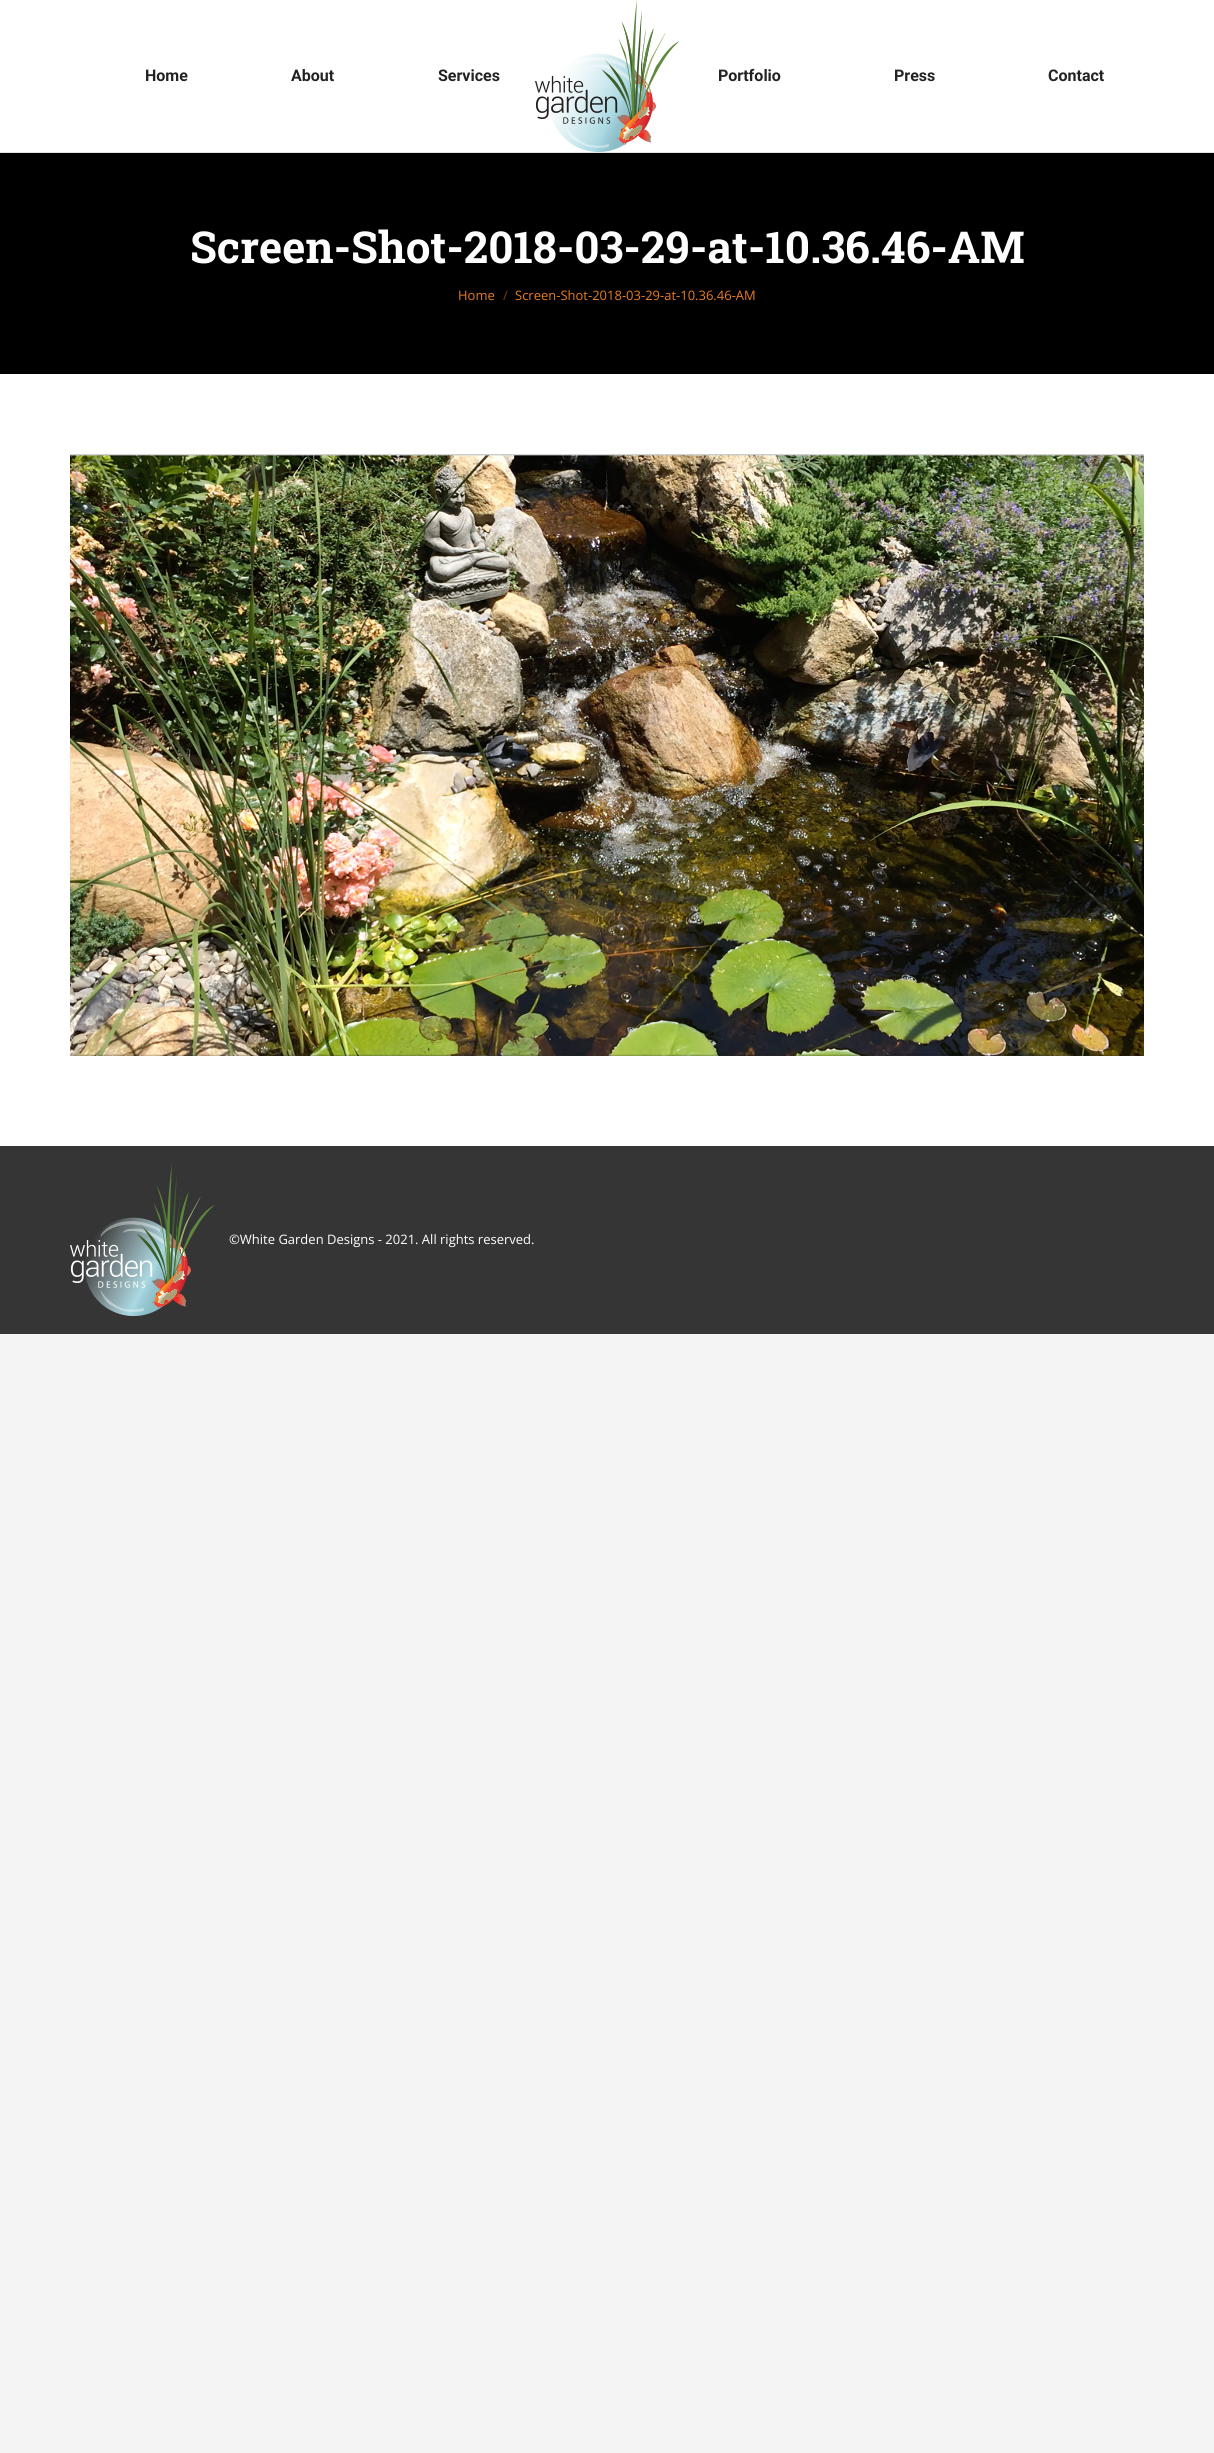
import math
import cairo



def draw_image(context, path, x, y, w, h):
    context.save()
    context.set_source_surface(cairo.ImageSurface.create_from_png(path), x, y)
    context.rectangle(x, y, w, h)
    context.fill()
    context.restore()


def draw(context):
    context.set_source_rgb(244 / 255, 244 / 255, 244 / 255)
    context.paint()
    context.set_source_rgb(1, 1, 1)
    context.rectangle(0, 0, 1214, 1146)
    context.fill()
    context.set_source_rgb(228 / 255, 228 / 255, 228 / 255)
    context.rectangle(0, 152, 1214, 1)
    context.fill()
    draw_image(context, "images/1.png", 535, 0, 144, 152)
    context.set_source_rgb(0, 0, 0)
    context.rectangle(0, 153, 1214, 221)
    context.fill()
    draw_image(context, "images/2.png", 70, 454, 1074, 602)
    context.set_source_rgb(53 / 255, 53 / 255, 53 / 255)
    context.rectangle(0, 1146, 1214, 188)
    context.fill()
    draw_image(context, "images/3.png", 70, 1164, 144, 152)
    context.select_font_face("Roboto", cairo.FontSlant.NORMAL, cairo.FontWeight.BOLD)
    context.set_font_size(16)
    context.set_source_rgb(34 / 255, 34 / 255, 34 / 255)
    context.move_to(145, 81)
    context.show_text("Home")
    context.move_to(291, 81)
    context.show_text("About")
    context.move_to(438, 81)
    context.show_text("Services")
    context.move_to(718, 81)
    context.show_text("Portfolio")
    context.move_to(894, 81)
    context.show_text("Press")
    context.move_to(1048, 81)
    context.show_text("Contact")
    context.select_font_face("Roboto Slab", cairo.FontSlant.NORMAL, cairo.FontWeight.BOLD)
    context.set_font_size(44)
    context.set_source_rgb(1, 1, 1)
    context.move_to(190, 263)
    context.show_text("Screen-Shot-2018-03-29-at-10.36.46-AM")
    context.select_font_face("Open Sans")
    context.set_font_size(13)
    context.set_source_rgb(233 / 255, 125 / 255, 31 / 255)
    context.move_to(458, 300)
    context.show_text("Home")
    context.set_source_rgb(117 / 255, 63 / 255, 16 / 255)
    context.move_to(503, 300)
    context.show_text("/")
    context.set_source_rgb(233 / 255, 125 / 255, 31 / 255)
    context.move_to(515, 300)
    context.show_text("Screen-Shot-2018-03-29-at-10.36.46-AM")
    context.set_source_rgb(1, 1, 1)
    context.move_to(229, 1244)
    context.show_text("©White Garden Designs - 2021. All rights reserved.")


surface = cairo.ImageSurface(cairo.Format.RGB24, 1214, 2453)
context = cairo.Context(surface)
options = cairo.FontOptions()
options.set_hint_metrics(cairo.HintMetrics.OFF)
options.set_hint_style(cairo.HintStyle.NONE)
context.set_font_options(options)
context.set_miter_limit(4)
draw(context)
surface.write_to_png("out.png")
